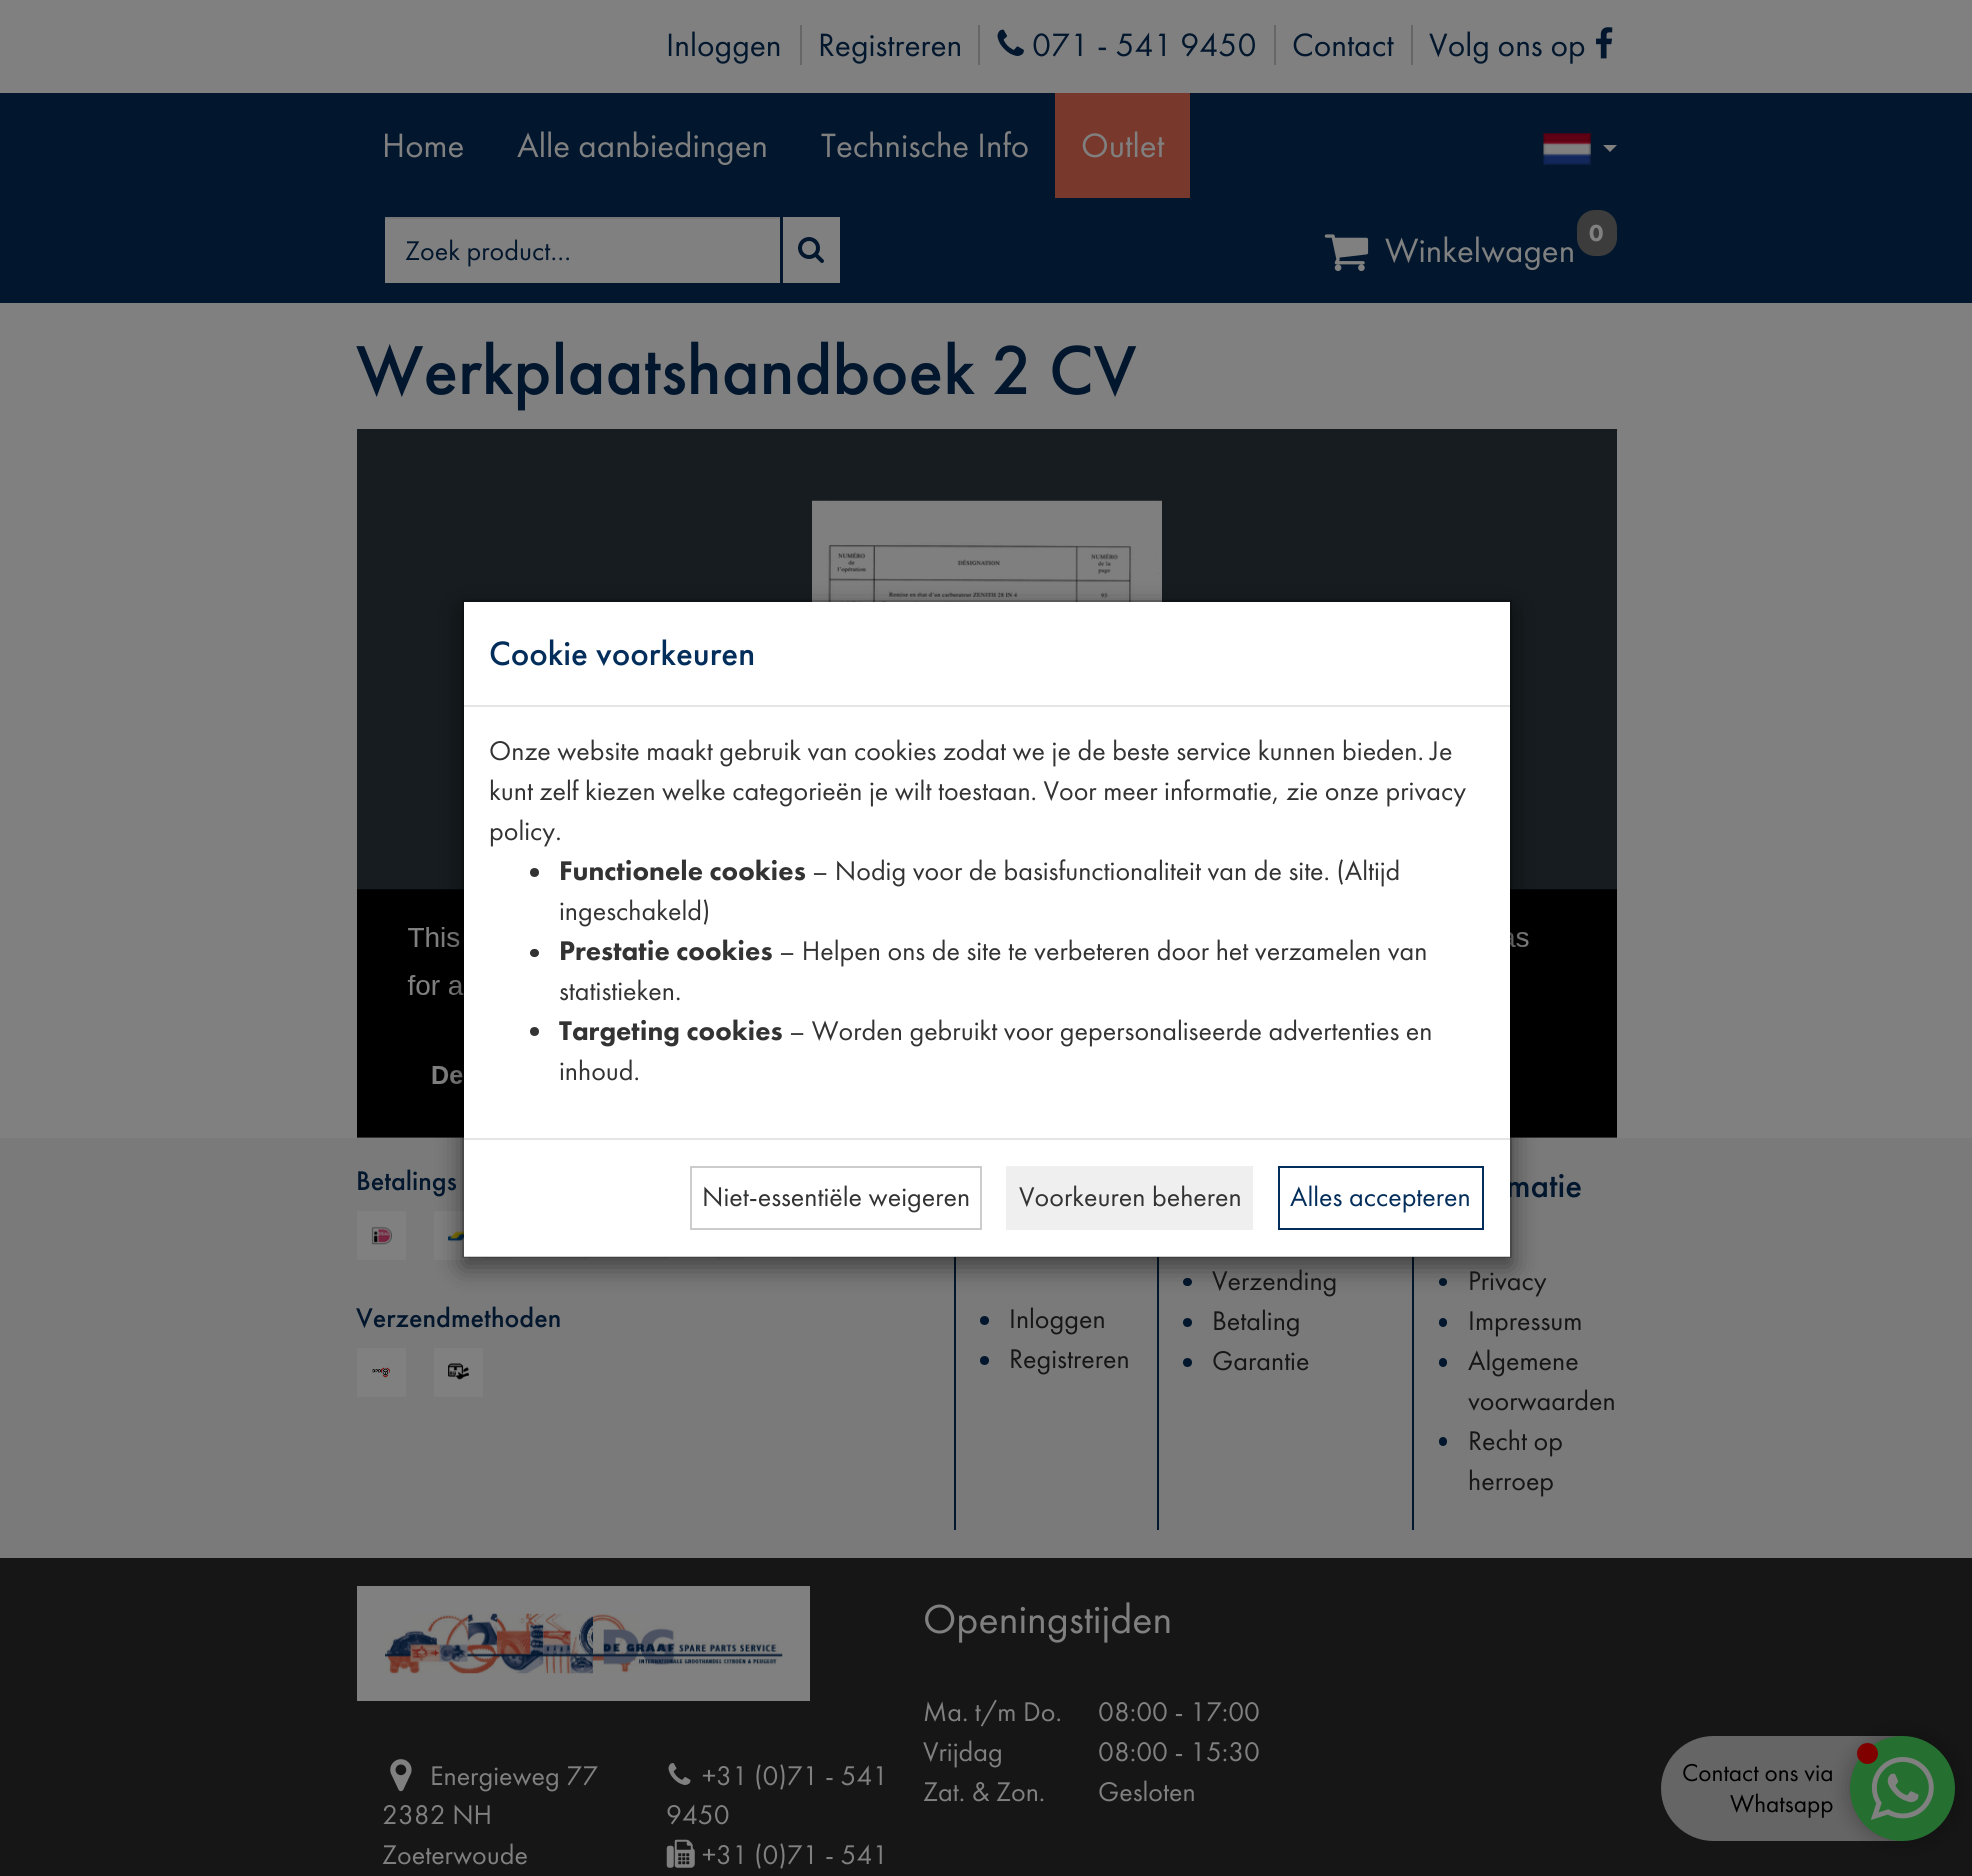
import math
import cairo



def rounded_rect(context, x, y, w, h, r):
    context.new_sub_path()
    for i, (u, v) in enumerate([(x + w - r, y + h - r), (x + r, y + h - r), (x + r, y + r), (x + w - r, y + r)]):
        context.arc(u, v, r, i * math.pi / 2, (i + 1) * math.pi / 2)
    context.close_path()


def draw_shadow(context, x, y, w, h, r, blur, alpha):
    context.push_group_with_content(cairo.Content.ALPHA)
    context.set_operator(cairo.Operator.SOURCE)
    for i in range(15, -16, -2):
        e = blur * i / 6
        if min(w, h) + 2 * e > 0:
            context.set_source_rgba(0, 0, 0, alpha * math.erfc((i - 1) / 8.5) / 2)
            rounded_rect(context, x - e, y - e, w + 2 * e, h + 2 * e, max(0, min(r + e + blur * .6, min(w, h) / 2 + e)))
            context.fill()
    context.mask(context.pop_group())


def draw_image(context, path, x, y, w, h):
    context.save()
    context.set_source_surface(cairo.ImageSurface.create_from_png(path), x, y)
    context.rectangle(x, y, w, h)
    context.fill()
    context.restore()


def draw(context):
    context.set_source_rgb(128 / 255, 128 / 255, 128 / 255)
    context.paint()
    context.set_source_rgb(102 / 255, 102 / 255, 102 / 255)
    context.rectangle(800, 25, 2, 40)
    context.fill()
    context.rectangle(978, 25, 2, 40)
    context.fill()
    draw_image(context, "images/1.png", 997, 29, 27, 27)
    context.rectangle(1274, 25, 2, 40)
    context.fill()
    context.rectangle(1411, 25, 2, 40)
    context.fill()
    draw_image(context, "images/2.png", 1596, 27, 17, 32)
    context.set_source_rgb(2 / 255, 23 / 255, 45 / 255)
    context.rectangle(0, 93, 1972, 210)
    context.fill()
    context.set_source_rgb(120 / 255, 56 / 255, 43 / 255)
    context.rectangle(1055, 93, 135, 105)
    context.fill()
    draw_image(context, "images/3.png", 1543, 133, 48, 32)
    context.set_source_rgb(128 / 255, 128 / 255, 128 / 255)
    context.new_path()
    context.move_to(1603, 145)
    context.line_to(1617, 145)
    context.line_to(1610, 152)
    context.close_path()
    context.fill()
    context.rectangle(385, 219, 395, 64)
    context.fill()
    context.set_source_rgb(118 / 255, 118 / 255, 118 / 255)
    context.rectangle(385, 217, 396, 2)
    context.fill()
    context.rectangle(384, 216, 397, 68)
    context.set_source_rgb(2 / 255, 23 / 255, 45 / 255)
    context.stroke()
    context.set_source_rgb(128 / 255, 128 / 255, 128 / 255)
    context.rectangle(783, 217, 57, 66)
    context.fill()
    draw_image(context, "images/4.png", 798, 237, 26, 26)
    context.set_source_rgb(60 / 255, 60 / 255, 60 / 255)
    rounded_rect(context, 1577, 210, 40, 46, 18)
    context.fill()
    draw_image(context, "images/5.png", 1324, 234, 45, 38)
    draw_image(context, "images/6.png", 357, 429, 1260, 709)
    context.set_source_rgb(122 / 255, 122 / 255, 122 / 255)
    context.rectangle(0, 1138, 1972, 420)
    context.fill()
    context.set_source_rgb(128 / 255, 128 / 255, 128 / 255)
    context.rectangle(357, 1211, 49, 49)
    context.fill()
    draw_image(context, "images/7.png", 371, 1226, 21, 19)
    context.rectangle(434, 1211, 49, 49)
    context.fill()
    draw_image(context, "images/8.png", 448, 1231, 16, 11)
    context.rectangle(511, 1257, 49, 3)
    context.fill()
    context.rectangle(588, 1257, 51, 3)
    context.fill()
    context.rectangle(667, 1257, 49, 3)
    context.fill()
    context.rectangle(744, 1257, 49, 3)
    context.fill()
    context.rectangle(357, 1348, 49, 49)
    context.fill()
    draw_image(context, "images/9.png", 372, 1367, 18, 11)
    context.rectangle(434, 1348, 49, 49)
    context.fill()
    draw_image(context, "images/10.png", 448, 1363, 21, 17)
    context.set_source_rgb(2 / 255, 23 / 255, 45 / 255)
    context.rectangle(954, 1257, 2, 273)
    context.fill()
    context.arc(984.5, 1320.5, 4.5, 0, 2 * math.pi)
    context.fill()
    context.arc(984.5, 1360.5, 4.5, 0, 2 * math.pi)
    context.fill()
    context.rectangle(1157, 1257, 2, 273)
    context.fill()
    rounded_rect(context, 1183, 1278, 9, 8, 4)
    context.fill()
    context.arc(1187.5, 1322.5, 4.5, 0, 2 * math.pi)
    context.fill()
    context.arc(1187.5, 1362.5, 4.5, 0, 2 * math.pi)
    context.fill()
    context.rectangle(1412, 1257, 2, 273)
    context.fill()
    context.arc(1443, 1282, 4, 0, 2 * math.pi)
    context.fill()
    rounded_rect(context, 1439, 1318, 8, 9, 4)
    context.fill()
    rounded_rect(context, 1439, 1358, 8, 9, 4)
    context.fill()
    rounded_rect(context, 1439, 1437, 8, 9, 4)
    context.fill()
    context.set_source_rgb(22 / 255, 22 / 255, 22 / 255)
    context.rectangle(0, 1558, 1972, 318)
    context.fill()
    context.set_source_rgb(128 / 255, 128 / 255, 128 / 255)
    context.rectangle(357, 1586, 453, 115)
    context.fill()
    draw_image(context, "images/11.png", 385, 1613, 398, 61)
    draw_image(context, "images/12.png", 390, 1759, 22, 33)
    draw_image(context, "images/13.png", 668, 1763, 23, 22)
    draw_image(context, "images/14.png", 666, 1839, 29, 29)
    context.set_source_rgb(101 / 255, 101 / 255, 101 / 255)
    context.new_path()
    context.move_to(1713.5, 1736)
    context.line_to(1902, 1736)
    context.line_to(1902, 1841)
    context.line_to(1713.5, 1841)
    context.curve_to(1684.5, 1841, 1661, 1817.5, 1661, 1788.5)
    context.curve_to(1661, 1759.5, 1684.5, 1736, 1713.5, 1736)
    context.close_path()
    context.fill()
    context.set_source_rgb(0, 0, 0)
    draw_shadow(context, 1850, 1736, 105, 105, 52.5, 10.5, 0.3)
    context.set_source_rgb(37 / 255, 112 / 255, 48 / 255)
    context.arc(1902.5, 1788.5, 52.5, 0, 2 * math.pi)
    context.fill()
    draw_image(context, "images/15.png", 1871, 1757, 63, 63)
    context.set_source_rgb(128 / 255, 0, 0)
    context.arc(1867.5, 1753.5, 10.5, 0, 2 * math.pi)
    context.fill()
    context.set_source_rgb(0, 0, 0)
    draw_shadow(context, 462, 609, 1050, 658, 0, 13, 0.5)
    context.select_font_face("Futura PT")
    context.set_font_size(33.5)
    context.set_source_rgb(2 / 255, 23 / 255, 45 / 255)
    context.move_to(666, 56)
    context.show_text("Inloggen")
    context.move_to(818, 56)
    context.show_text("Registreren")
    context.move_to(1032, 56)
    context.show_text("071 - 541 9450")
    context.move_to(1292, 56)
    context.show_text("Contact")
    context.move_to(1429, 56)
    context.show_text("Volg ons op")
    context.set_font_size(35)
    context.set_source_rgb(128 / 255, 128 / 255, 128 / 255)
    context.move_to(382, 157)
    context.show_text("Home")
    context.move_to(517, 157)
    context.show_text("Alle aanbiedingen")
    context.move_to(821, 157)
    context.show_text("Technische Info")
    context.move_to(1081, 157)
    context.show_text("Outlet")
    context.set_font_size(28)
    context.set_source_rgb(2 / 255, 23 / 255, 45 / 255)
    context.move_to(405, 260)
    context.show_text("Zoek product…")
    context.select_font_face("Futura PT Black")
    context.set_font_size(24)
    context.set_source_rgb(128 / 255, 128 / 255, 128 / 255)
    context.move_to(1589, 241)
    context.show_text("0")
    context.select_font_face("Futura PT")
    context.set_font_size(35)
    context.move_to(1385, 262)
    context.show_text("Winkelwagen")
    context.select_font_face("Futura PT Medium")
    context.set_font_size(71.75)
    context.set_source_rgb(2 / 255, 23 / 255, 45 / 255)
    context.move_to(356, 394)
    context.show_text("Werkplaatshandboek 2 CV")
    context.set_font_size(28)
    context.move_to(356, 1190)
    context.show_text("Betalings")
    context.move_to(356, 1327)
    context.show_text("Verzendmethoden")
    context.select_font_face("Futura PT")
    context.set_source_rgb(22 / 255, 22 / 255, 22 / 255)
    context.move_to(1009, 1328)
    context.show_text("Inloggen")
    context.move_to(1009, 1368)
    context.show_text("Registreren")
    context.move_to(1212, 1290)
    context.show_text("Verzending")
    context.move_to(1212, 1330)
    context.show_text("Betaling")
    context.move_to(1212, 1370)
    context.show_text("Garantie")
    context.select_font_face("Futura PT Medium")
    context.set_font_size(35)
    context.set_source_rgb(2 / 255, 23 / 255, 45 / 255)
    context.move_to(1506, 1197)
    context.show_text("matie")
    context.select_font_face("Futura PT")
    context.set_font_size(28)
    context.set_source_rgb(22 / 255, 22 / 255, 22 / 255)
    context.move_to(1468, 1290)
    context.show_text("Privacy")
    context.move_to(1468, 1330)
    context.show_text("Impressum")
    context.move_to(1468, 1370)
    context.show_text("Algemene")
    context.move_to(1468, 1410)
    context.show_text("voorwaarden")
    context.move_to(1468, 1450)
    context.show_text("Recht op")
    context.move_to(1468, 1490)
    context.show_text("herroep")
    context.set_source_rgb(128 / 255, 128 / 255, 128 / 255)
    context.move_to(430, 1785)
    context.show_text("Energieweg 77")
    context.move_to(382, 1824)
    context.show_text("2382 NH")
    context.move_to(382, 1864)
    context.show_text("Zoeterwoude")
    context.move_to(702, 1785)
    context.show_text("+31 (0)71 - 541")
    context.move_to(666, 1824)
    context.show_text("9450")
    context.move_to(702, 1864)
    context.show_text("+31 (0)71 - 541")
    context.set_font_size(42)
    context.move_to(923, 1633)
    context.show_text("Openingstijden")
    context.set_font_size(28)
    context.move_to(923, 1721)
    context.show_text("Ma. t/m Do.")
    context.move_to(1098, 1721)
    context.show_text("08:00 - 17:00")
    context.move_to(923, 1761)
    context.show_text("Vrijdag")
    context.move_to(1098, 1761)
    context.show_text("08:00 - 15:30")
    context.move_to(923, 1801)
    context.show_text("Zat. & Zon.")
    context.move_to(1098, 1801)
    context.show_text("Gesloten")
    context.set_font_size(25.25)
    context.set_source_rgb(0, 0, 0)
    context.move_to(1682, 1781)
    context.show_text("Contact ons via")
    context.move_to(1730, 1812)
    context.show_text("Whatsapp")
    context.set_source_rgb(1, 1, 1)
    context.rectangle(464, 602, 1046, 655)
    context.fill()
    context.rectangle(463, 601, 1048, 656)
    context.set_source_rgba(0, 0, 0, 0.2)
    context.stroke()
    context.set_source_rgb(229 / 255, 229 / 255, 229 / 255)
    context.rectangle(464, 705, 1046, 2)
    context.fill()
    context.select_font_face("Futura PT Medium")
    context.set_font_size(35)
    context.set_source_rgb(3 / 255, 45 / 255, 90 / 255)
    context.move_to(489, 665)
    context.show_text("Cookie voorkeuren")
    context.select_font_face("Futura PT")
    context.set_font_size(28)
    context.set_source_rgb(51 / 255, 51 / 255, 51 / 255)
    context.move_to(489, 760)
    context.show_text("Onze website maakt gebruik van cookies zodat we je de beste service kunnen bieden. Je")
    context.move_to(489, 800)
    context.show_text("kunt zelf kiezen welke categorieën je wilt toestaan. Voor meer informatie, zie onze privacy")
    context.move_to(489, 840)
    context.show_text("policy.")
    context.new_path()
    context.arc(534.5, 872.5, 4.5, 0, 2 * math.pi)
    context.fill()
    context.select_font_face("Futura PT Black")
    context.move_to(559, 880)
    context.show_text("Functionele cookies")
    context.select_font_face("Futura PT")
    context.move_to(812, 880)
    context.show_text("– Nodig voor de basisfunctionaliteit van de site. (Altijd")
    context.move_to(559, 920)
    context.show_text("ingeschakeld)")
    rounded_rect(context, 530, 949, 9, 8, 4)
    context.fill()
    context.select_font_face("Futura PT Black")
    context.move_to(559, 960)
    context.show_text("Prestatie cookies")
    context.select_font_face("Futura PT")
    context.move_to(779, 960)
    context.show_text("– Helpen ons de site te verbeteren door het verzamelen van")
    context.move_to(559, 1000)
    context.show_text("statistieken.")
    context.new_path()
    context.arc(534.5, 1031.5, 4.5, 0, 2 * math.pi)
    context.fill()
    context.select_font_face("Futura PT Black")
    context.move_to(559, 1040)
    context.show_text("Targeting cookies")
    context.select_font_face("Futura PT")
    context.move_to(789, 1040)
    context.show_text("– Worden gebruikt voor gepersonaliseerde advertenties en")
    context.move_to(559, 1080)
    context.show_text("inhoud.")
    context.set_source_rgb(229 / 255, 229 / 255, 229 / 255)
    context.rectangle(464, 1138, 1046, 2)
    context.fill()
    context.rectangle(691, 1167, 290, 62)
    context.set_source_rgb(204 / 255, 204 / 255, 204 / 255)
    context.stroke()
    context.set_source_rgb(51 / 255, 51 / 255, 51 / 255)
    context.move_to(702, 1206)
    context.show_text("Niet-essentiële weigeren")
    context.set_source_rgb(239 / 255, 239 / 255, 239 / 255)
    context.rectangle(1006, 1166, 247, 64)
    context.fill()
    context.set_source_rgb(51 / 255, 51 / 255, 51 / 255)
    context.move_to(1019, 1206)
    context.show_text("Voorkeuren beheren")
    context.rectangle(1279, 1167, 204, 62)
    context.set_source_rgb(3 / 255, 45 / 255, 90 / 255)
    context.stroke()
    context.move_to(1290, 1206)
    context.show_text("Alles accepteren")


surface = cairo.ImageSurface(cairo.Format.RGB24, 1972, 1876)
context = cairo.Context(surface)
options = cairo.FontOptions()
options.set_hint_metrics(cairo.HintMetrics.OFF)
options.set_hint_style(cairo.HintStyle.NONE)
context.set_font_options(options)
context.set_miter_limit(4)
draw(context)
surface.write_to_png("out.png")
